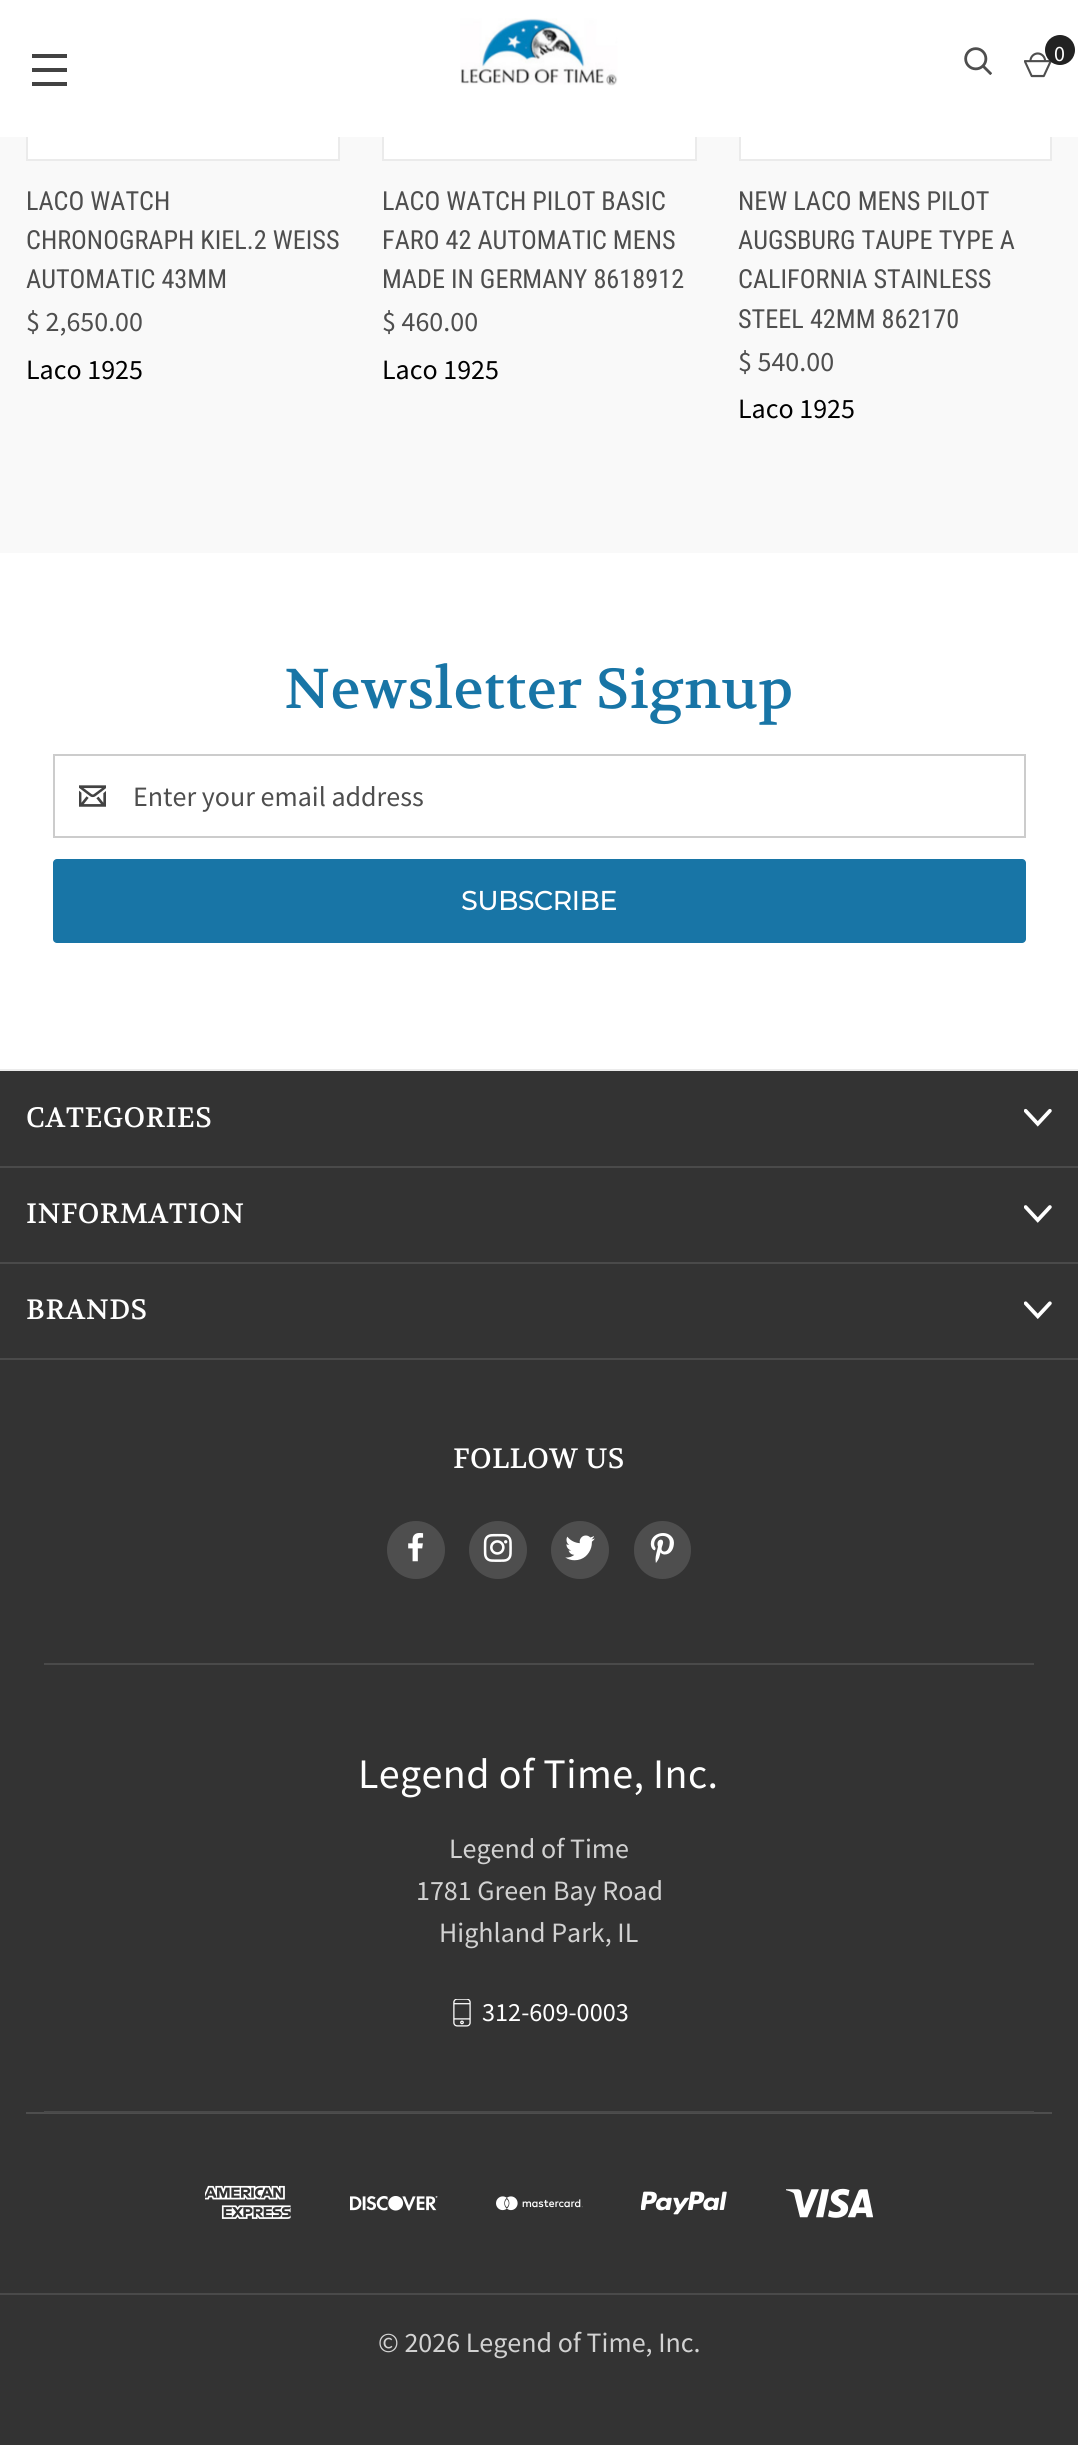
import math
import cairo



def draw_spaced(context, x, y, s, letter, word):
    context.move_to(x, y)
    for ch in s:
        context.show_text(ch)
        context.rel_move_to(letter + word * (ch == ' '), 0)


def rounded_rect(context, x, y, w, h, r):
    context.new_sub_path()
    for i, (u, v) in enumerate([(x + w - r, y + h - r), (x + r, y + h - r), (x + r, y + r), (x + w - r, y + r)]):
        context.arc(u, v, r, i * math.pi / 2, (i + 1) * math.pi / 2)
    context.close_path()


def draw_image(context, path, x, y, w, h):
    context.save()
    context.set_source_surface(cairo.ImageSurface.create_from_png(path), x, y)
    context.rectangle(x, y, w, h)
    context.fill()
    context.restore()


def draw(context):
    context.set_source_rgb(1, 1, 1)
    context.paint()
    context.set_source_rgb(249 / 255, 249 / 255, 249 / 255)
    context.rectangle(0, 137, 1078, 416)
    context.fill()
    context.set_source_rgb(1, 1, 1)
    context.rectangle(28, 137, 310, 22)
    context.fill()
    context.rectangle(27, -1, 312, 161)
    context.set_source_rgb(235 / 255, 235 / 255, 235 / 255)
    context.stroke()
    context.set_source_rgb(1, 1, 1)
    context.rectangle(384, 137, 311, 22)
    context.fill()
    context.rectangle(383, -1, 313, 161)
    context.set_source_rgb(235 / 255, 235 / 255, 235 / 255)
    context.stroke()
    context.set_source_rgb(1, 1, 1)
    context.rectangle(741, 137, 309, 22)
    context.fill()
    context.rectangle(740, -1, 311, 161)
    context.set_source_rgb(235 / 255, 235 / 255, 235 / 255)
    context.stroke()
    context.set_source_rgb(1, 1, 1)
    context.rectangle(26, 0, 1026, 137)
    context.fill()
    context.set_source_rgb(66 / 255, 66 / 255, 66 / 255)
    context.rectangle(32, 68, 35, 4)
    context.fill()
    context.rectangle(32, 54, 35, 4)
    context.fill()
    context.rectangle(32, 82, 35, 4)
    context.fill()
    draw_image(context, "images/1.png", 460, 18, 158, 68)
    draw_image(context, "images/2.png", 964, 47, 28, 28)
    draw_image(context, "images/3.png", 1024, 52, 28, 26)
    context.set_source_rgb(34 / 255, 34 / 255, 34 / 255)
    context.arc(1060, 50, 15, 0, 2 * math.pi)
    context.fill()
    context.rectangle(54, 755, 971, 82)
    context.set_source_rgb(204 / 255, 204 / 255, 204 / 255)
    context.stroke()
    draw_image(context, "images/4.png", 79, 785, 27, 22)
    context.set_source_rgb(24 / 255, 117 / 255, 166 / 255)
    rounded_rect(context, 53, 859, 973, 84, 4)
    context.fill()
    context.set_source_rgb(51 / 255, 51 / 255, 51 / 255)
    context.rectangle(0, 1071, 1078, 1374)
    context.fill()
    context.set_source_rgb(235 / 255, 235 / 255, 235 / 255)
    context.rectangle(0, 1069, 1078, 2)
    context.fill()
    context.set_source_rgb(74 / 255, 74 / 255, 74 / 255)
    context.rectangle(0, 1166, 1078, 2)
    context.fill()
    draw_image(context, "images/5.png", 1024, 1108, 28, 19)
    context.rectangle(0, 1262, 1078, 2)
    context.fill()
    draw_image(context, "images/6.png", 1024, 1205, 28, 18)
    context.rectangle(0, 1358, 1078, 2)
    context.fill()
    draw_image(context, "images/7.png", 1024, 1301, 28, 18)
    context.rectangle(44, 1663, 990, 2)
    context.fill()
    context.set_source_rgb(78 / 255, 78 / 255, 78 / 255)
    context.arc(416, 1550, 29, 0, 2 * math.pi)
    context.fill()
    draw_image(context, "images/8.png", 408, 1533, 16, 29)
    context.arc(498, 1550, 29, 0, 2 * math.pi)
    context.fill()
    draw_image(context, "images/9.png", 483, 1533, 29, 29)
    context.arc(580, 1550, 29, 0, 2 * math.pi)
    context.fill()
    draw_image(context, "images/10.png", 565, 1535, 30, 26)
    rounded_rect(context, 634, 1521, 57, 58, 28.5)
    context.fill()
    draw_image(context, "images/11.png", 650, 1533, 24, 30)
    context.rectangle(26, 2112, 1026, 2)
    context.fill()
    context.set_source_rgb(74 / 255, 74 / 255, 74 / 255)
    context.rectangle(44, 2111, 990, 2)
    context.fill()
    draw_image(context, "images/12.png", 453, 1999, 18, 28)
    context.rectangle(0, 2293, 1078, 2)
    context.fill()
    draw_image(context, "images/13.png", 205, 2185, 86, 34)
    draw_image(context, "images/14.png", 350, 2196, 88, 15)
    draw_image(context, "images/15.png", 496, 2196, 87, 15)
    draw_image(context, "images/16.png", 641, 2191, 86, 24)
    draw_image(context, "images/17.png", 786, 2188, 87, 30)
    context.select_font_face("Source Sans Pro")
    context.set_font_size(22)
    context.set_source_rgb(1, 1, 1)
    context.move_to(1054, 61)
    context.show_text("0")
    context.select_font_face("Roboto Condensed")
    context.set_font_size(26.25)
    context.set_source_rgb(78 / 255, 78 / 255, 78 / 255)
    context.move_to(26, 210)
    context.show_text("LACO WATCH")
    context.move_to(26, 249)
    context.show_text("CHRONOGRAPH KIEL.2 WEISS")
    context.move_to(26, 288)
    context.show_text("AUTOMATIC 43MM")
    context.select_font_face("Source Sans Pro")
    context.set_font_size(28)
    context.move_to(26, 331)
    context.show_text("$ 2,650.00")
    context.set_source_rgb(0, 0, 0)
    context.move_to(26, 379)
    context.show_text("Laco 1925")
    context.select_font_face("Roboto Condensed")
    context.set_font_size(26.25)
    context.set_source_rgb(78 / 255, 78 / 255, 78 / 255)
    context.move_to(382, 210)
    context.show_text("LACO WATCH PILOT BASIC")
    context.move_to(382, 249)
    context.show_text("FARO 42 AUTOMATIC MENS")
    context.move_to(382, 288)
    context.show_text("MADE IN GERMANY 8618912")
    context.select_font_face("Source Sans Pro")
    context.set_font_size(28)
    context.move_to(382, 331)
    context.show_text("$ 460.00")
    context.set_source_rgb(0, 0, 0)
    context.move_to(382, 379)
    context.show_text("Laco 1925")
    context.select_font_face("Roboto Condensed")
    context.set_font_size(26.25)
    context.set_source_rgb(78 / 255, 78 / 255, 78 / 255)
    context.move_to(738, 210)
    context.show_text("NEW LACO MENS PILOT")
    context.move_to(738, 249)
    context.show_text("AUGSBURG TAUPE TYPE A")
    context.move_to(738, 288)
    context.show_text("CALIFORNIA STAINLESS")
    context.move_to(738, 328)
    context.show_text("STEEL 42MM 862170")
    context.select_font_face("Source Sans Pro")
    context.set_font_size(28)
    context.move_to(738, 371)
    context.show_text("$ 540.00")
    context.set_source_rgb(0, 0, 0)
    context.move_to(738, 418)
    context.show_text("Laco 1925")
    context.select_font_face("Volkhov")
    context.set_font_size(56)
    context.set_source_rgb(24 / 255, 117 / 255, 166 / 255)
    draw_spaced(context, 284, 708, "Newsletter Signup", 0.4, 0)
    context.select_font_face("Source Sans Pro")
    context.set_font_size(28)
    context.set_source_rgb(78 / 255, 78 / 255, 78 / 255)
    context.move_to(133, 806)
    context.show_text("Enter your email address")
    context.select_font_face("Montserrat", cairo.FontSlant.NORMAL, cairo.FontWeight.BOLD)
    context.set_font_size(26.25)
    context.set_source_rgb(1, 1, 1)
    context.move_to(461, 910)
    context.show_text("SUBSCRIBE")
    context.select_font_face("Volkhov")
    context.set_font_size(28)
    draw_spaced(context, 26, 1127, "CATEGORIES", 0.4, 0)
    draw_spaced(context, 26, 1223, "INFORMATION", 0.4, 0)
    draw_spaced(context, 26, 1319, "BRANDS", 0.4, 0)
    draw_spaced(context, 453, 1468, "FOLLOW US", 0.4, 0)
    context.select_font_face("Source Sans Pro")
    context.set_font_size(42)
    draw_spaced(context, 358, 1788, "Legend of Time, Inc.", 0.4, 0)
    context.set_font_size(28)
    context.set_source_rgb(210 / 255, 210 / 255, 210 / 255)
    context.move_to(449, 1858)
    context.show_text("Legend of Time")
    context.move_to(416, 1900)
    context.show_text("1781 Green Bay Road")
    context.move_to(439, 1942)
    context.show_text("Highland Park, IL")
    context.set_font_size(26.25)
    context.set_source_rgb(1, 1, 1)
    context.move_to(482, 2021)
    context.show_text("312-609-0003")
    context.set_font_size(28)
    context.set_source_rgb(210 / 255, 210 / 255, 210 / 255)
    context.move_to(378, 2352)
    context.show_text("© 2026 Legend of Time, Inc.")


surface = cairo.ImageSurface(cairo.Format.RGB24, 1078, 2445)
context = cairo.Context(surface)
options = cairo.FontOptions()
options.set_hint_metrics(cairo.HintMetrics.OFF)
options.set_hint_style(cairo.HintStyle.NONE)
context.set_font_options(options)
context.set_miter_limit(4)
draw(context)
surface.write_to_png("out.png")
